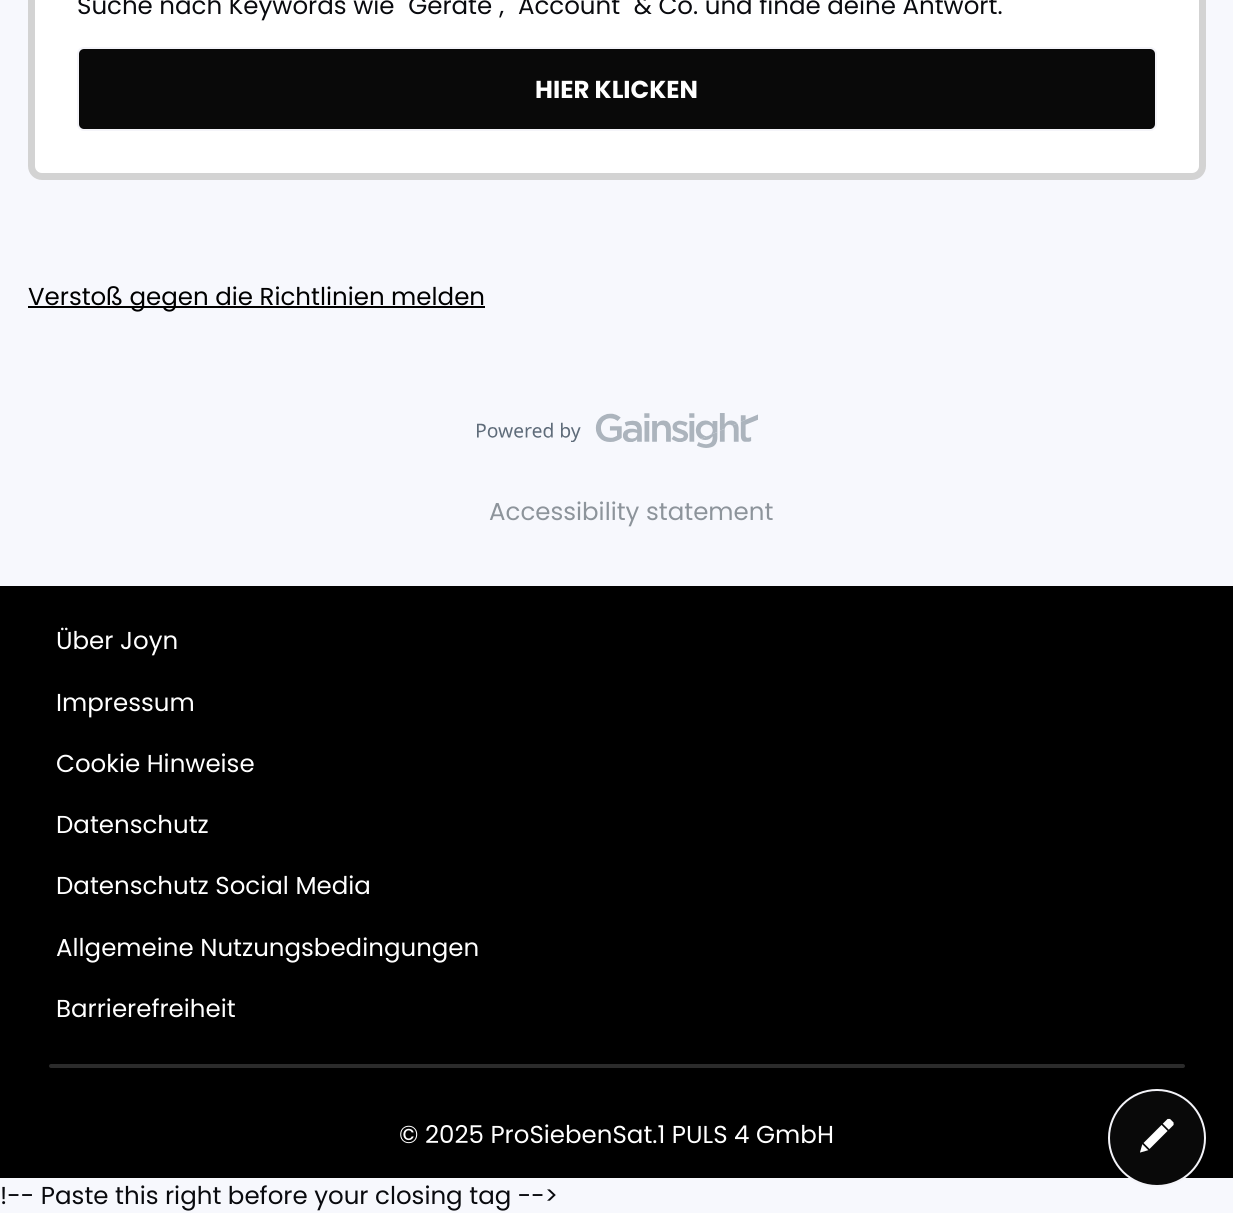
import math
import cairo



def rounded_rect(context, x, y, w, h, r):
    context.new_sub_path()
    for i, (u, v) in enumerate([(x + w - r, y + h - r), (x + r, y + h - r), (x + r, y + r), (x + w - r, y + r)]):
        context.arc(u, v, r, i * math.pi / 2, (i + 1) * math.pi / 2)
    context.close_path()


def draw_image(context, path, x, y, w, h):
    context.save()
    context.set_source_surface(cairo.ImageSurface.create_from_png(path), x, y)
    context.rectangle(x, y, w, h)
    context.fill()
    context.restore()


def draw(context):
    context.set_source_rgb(247 / 255, 248 / 255, 253 / 255)
    context.paint()
    context.set_source_rgb(1, 1, 1)
    rounded_rect(context, 31.5, -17.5, 1171, 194, 10.5)
    context.fill_preserve()
    context.set_source_rgb(211 / 255, 211 / 255, 211 / 255)
    context.set_line_width(7)
    context.stroke()
    context.set_source_rgb(9 / 255, 9 / 255, 9 / 255)
    rounded_rect(context, 78, 48, 1078, 82, 6)
    context.fill_preserve()
    context.set_source_rgb(244 / 255, 244 / 255, 249 / 255)
    context.set_line_width(2)
    context.stroke()
    context.set_source_rgb(0, 0, 0)
    context.rectangle(28, 306, 457, 2)
    context.fill()
    draw_image(context, "images/1.png", 477, 413, 281, 35)
    context.rectangle(0, 586, 1233, 592)
    context.fill()
    context.set_source_rgb(43 / 255, 43 / 255, 43 / 255)
    rounded_rect(context, 49, 1064, 1136, 4, 2)
    context.fill()
    context.set_source_rgb(9 / 255, 9 / 255, 9 / 255)
    context.arc(1157, 1138, 48, 0, 2 * math.pi)
    context.fill_preserve()
    context.set_source_rgb(244 / 255, 244 / 255, 249 / 255)
    context.stroke()
    draw_image(context, "images/2.png", 1140, 1118, 34, 35)
    context.select_font_face("Poppins")
    context.set_font_size(24.5)
    context.set_source_rgb(9 / 255, 10 / 255, 14 / 255)
    context.move_to(77, 14)
    context.show_text("Suche nach Keywords wie \"Geräte\", \"Account\" & Co. und finde deine Antwort.")
    context.select_font_face("Poppins", cairo.FontSlant.NORMAL, cairo.FontWeight.BOLD)
    context.set_source_rgb(1, 1, 1)
    context.move_to(535, 98)
    context.show_text("HIER KLICKEN")
    context.select_font_face("Poppins")
    context.set_source_rgb(0, 0, 0)
    context.move_to(28, 305)
    context.show_text("Verstoß gegen die Richtlinien melden")
    context.set_source_rgb(141 / 255, 148 / 255, 155 / 255)
    context.move_to(489, 520)
    context.show_text("Accessibility statement")
    context.set_source_rgb(1, 1, 1)
    context.move_to(56, 649)
    context.show_text("Über Joyn")
    context.move_to(56, 711)
    context.show_text("Impressum")
    context.move_to(56, 772)
    context.show_text("Cookie Hinweise")
    context.move_to(56, 833)
    context.show_text("Datenschutz")
    context.move_to(56, 894)
    context.show_text("Datenschutz Social Media")
    context.move_to(56, 956)
    context.show_text("Allgemeine Nutzungsbedingungen")
    context.move_to(56, 1017)
    context.show_text("Barrierefreiheit")
    context.move_to(399, 1143)
    context.show_text("© 2025 ProSiebenSat.1 PULS 4 GmbH")
    context.set_source_rgb(9 / 255, 10 / 255, 14 / 255)
    context.move_to(0, 1204)
    context.show_text("!-- Paste this right before your closing tag -->")


surface = cairo.ImageSurface(cairo.Format.RGB24, 1233, 1213)
context = cairo.Context(surface)
options = cairo.FontOptions()
options.set_hint_metrics(cairo.HintMetrics.OFF)
options.set_hint_style(cairo.HintStyle.NONE)
context.set_font_options(options)
context.set_miter_limit(4)
draw(context)
surface.write_to_png("out.png")
